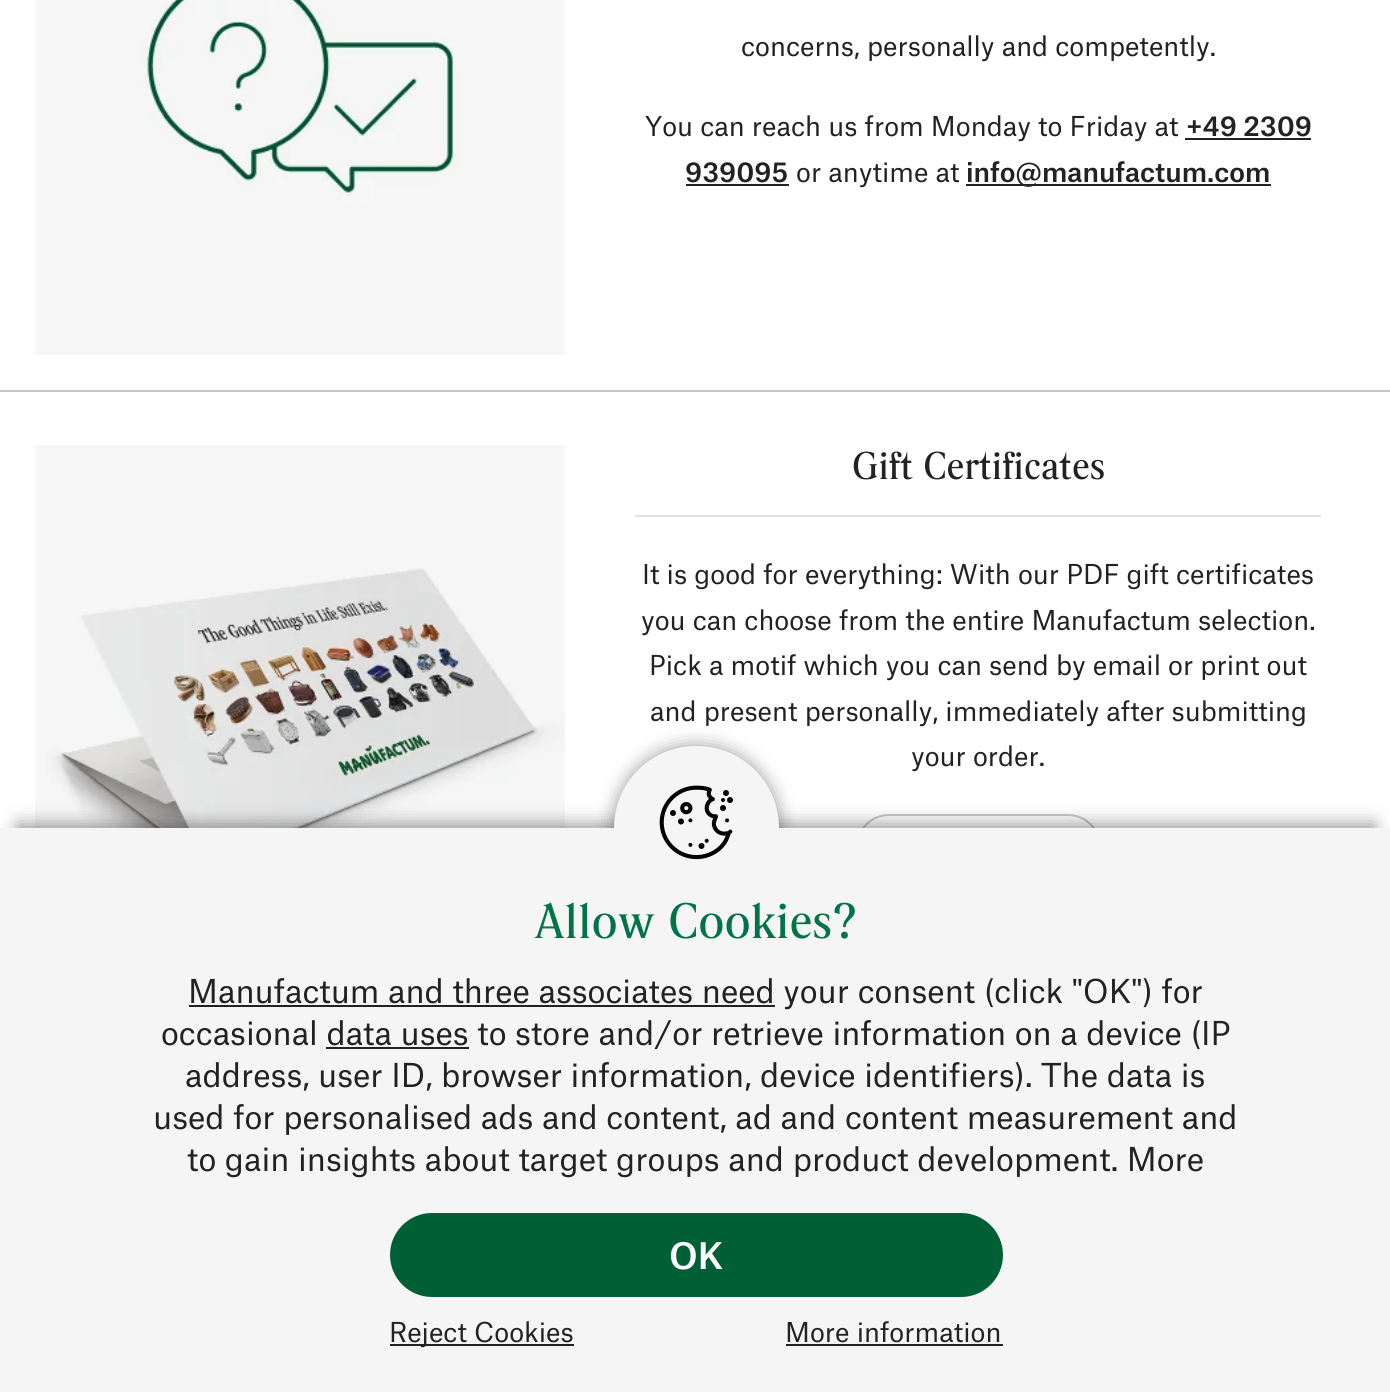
import math
import cairo



def rounded_rect(context, x, y, w, h, r):
    context.new_sub_path()
    for i, (u, v) in enumerate([(x + w - r, y + h - r), (x + r, y + h - r), (x + r, y + r), (x + w - r, y + r)]):
        context.arc(u, v, r, i * math.pi / 2, (i + 1) * math.pi / 2)
    context.close_path()


def draw_shadow(context, x, y, w, h, r, blur, alpha):
    context.push_group_with_content(cairo.Content.ALPHA)
    context.set_operator(cairo.Operator.SOURCE)
    for i in range(15, -16, -2):
        e = blur * i / 6
        if min(w, h) + 2 * e > 0:
            context.set_source_rgba(0, 0, 0, alpha * math.erfc((i - 1) / 8.5) / 2)
            rounded_rect(context, x - e, y - e, w + 2 * e, h + 2 * e, max(0, min(r + e + blur * .6, min(w, h) / 2 + e)))
            context.fill()
    context.mask(context.pop_group())


def draw_image(context, path, x, y, w, h):
    context.save()
    context.set_source_surface(cairo.ImageSurface.create_from_png(path), x, y)
    context.rectangle(x, y, w, h)
    context.fill()
    context.restore()


def draw(context):
    context.set_source_rgb(1, 1, 1)
    context.paint()
    context.set_source_rgb(200 / 255, 200 / 255, 200 / 255)
    context.rectangle(0, 390, 1390, 2)
    context.fill()
    draw_image(context, "images/1.png", 35, 0, 530, 355)
    context.set_source_rgb(34 / 255, 34 / 255, 34 / 255)
    context.rectangle(1185, 138, 126, 2)
    context.fill()
    context.rectangle(686, 184, 103, 2)
    context.fill()
    context.rectangle(966, 184, 305, 2)
    context.fill()
    draw_image(context, "images/2.png", 35, 445, 530, 383)
    context.set_source_rgb(225 / 255, 225 / 255, 225 / 255)
    context.rectangle(635, 515, 686, 2)
    context.fill()
    rounded_rect(context, 857, 815, 243, 64, 32)
    context.set_source_rgb(200 / 255, 200 / 255, 200 / 255)
    context.stroke()
    context.set_source_rgb(0, 0, 0)
    draw_shadow(context, 18, 824, 1356, 531, 0, 9, 0.4)
    context.set_source_rgb(245 / 255, 245 / 255, 245 / 255)
    context.rectangle(0, 828, 1390, 564)
    context.fill()
    context.save()
    context.rectangle(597, 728, 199, 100)
    context.clip()
    context.set_source_rgb(0, 0, 0)
    draw_shadow(context, 614, 746, 165, 164, 82, 9, 0.4)
    context.restore()
    context.new_path()
    context.move_to(696, 746)
    context.line_to(697, 746)
    context.curve_to(742.5, 746, 779, 782.5, 779, 828)
    context.line_to(614, 828)
    context.curve_to(614, 782.5, 650.5, 746, 696, 746)
    context.close_path()
    context.fill()
    draw_image(context, "images/3.png", 659, 785, 74, 75)
    context.set_source_rgb(34 / 255, 34 / 255, 34 / 255)
    context.rectangle(189, 1005, 586, 2)
    context.fill()
    context.rectangle(326, 1047, 143, 2)
    context.fill()
    gradient = cairo.LinearGradient(696, 889, 696, 1187)
    gradient.add_color_stop_rgba(0.82, 245 / 255, 245 / 255, 245 / 255, 0)
    gradient.add_color_stop_rgba(1, 245 / 255, 245 / 255, 245 / 255, 1)
    context.set_source(gradient)
    context.rectangle(187, 1146, 1016, 32)
    context.fill()
    context.set_source_rgb(0, 95 / 255, 53 / 255)
    rounded_rect(context, 390, 1213, 613, 84, 42)
    context.fill()
    context.set_source_rgb(34 / 255, 34 / 255, 34 / 255)
    context.rectangle(390, 1344, 184, 2)
    context.fill()
    context.rectangle(786, 1344, 217, 2)
    context.fill()
    context.select_font_face("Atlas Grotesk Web")
    context.set_font_size(26.25)
    context.move_to(741, 56)
    context.show_text("concerns, personally and competently.")
    context.move_to(645, 136)
    context.show_text("You can reach us from Monday to Friday at")
    context.select_font_face("Atlas Grotesk Web Medium")
    context.move_to(1186, 136)
    context.show_text("+49 2309")
    context.move_to(685, 182)
    context.show_text("939095")
    context.select_font_face("Atlas Grotesk Web")
    context.move_to(796, 182)
    context.show_text("or anytime at")
    context.select_font_face("Atlas Grotesk Web Medium")
    context.move_to(966, 182)
    context.show_text("info@manufactum.com")
    context.select_font_face("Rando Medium")
    context.set_font_size(36.75)
    context.move_to(852, 479)
    context.show_text("Gift Certificates")
    context.select_font_face("Atlas Grotesk Web")
    context.set_font_size(26.25)
    context.move_to(642, 584)
    context.show_text("It is good for everything: With our PDF gift certificates")
    context.move_to(641, 630)
    context.show_text("you can choose from the entire Manufactum selection.")
    context.move_to(649, 675)
    context.show_text("Pick a motif which you can send by email or print out")
    context.move_to(650, 721)
    context.show_text("and present personally, immediately after submitting")
    context.move_to(911, 766)
    context.show_text("your order.")
    context.select_font_face("Rando Medium")
    context.set_font_size(47.25)
    context.set_source_rgb(1 / 255, 116 / 255, 71 / 255)
    context.move_to(534, 938)
    context.show_text("Allow Cookies?")
    context.select_font_face("Atlas Grotesk Web")
    context.set_font_size(31.5)
    context.set_source_rgb(34 / 255, 34 / 255, 34 / 255)
    context.move_to(188, 1003)
    context.show_text("Manufactum and three associates need your consent (click \"OK\") for")
    context.move_to(161, 1045)
    context.show_text("occasional data uses to store and/or retrieve information on a device (IP")
    context.move_to(185, 1087)
    context.show_text("address, user ID, browser information, device identifiers). The data is")
    context.move_to(153, 1129)
    context.show_text("used for personalised ads and content, ad and content measurement and")
    context.move_to(187, 1171)
    context.show_text("to gain insights about target groups and product development. More")
    context.select_font_face("Atlas Grotesk Web Medium")
    context.set_font_size(35)
    context.set_source_rgb(1, 1, 1)
    context.move_to(669, 1269)
    context.show_text("OK")
    context.select_font_face("Atlas Grotesk Web")
    context.set_font_size(26.25)
    context.set_source_rgb(34 / 255, 34 / 255, 34 / 255)
    context.move_to(389, 1342)
    context.show_text("Reject Cookies")
    context.move_to(785, 1342)
    context.show_text("More information")


surface = cairo.ImageSurface(cairo.Format.RGB24, 1390, 1392)
context = cairo.Context(surface)
options = cairo.FontOptions()
options.set_hint_metrics(cairo.HintMetrics.OFF)
options.set_hint_style(cairo.HintStyle.NONE)
context.set_font_options(options)
context.set_miter_limit(4)
draw(context)
surface.write_to_png("out.png")
